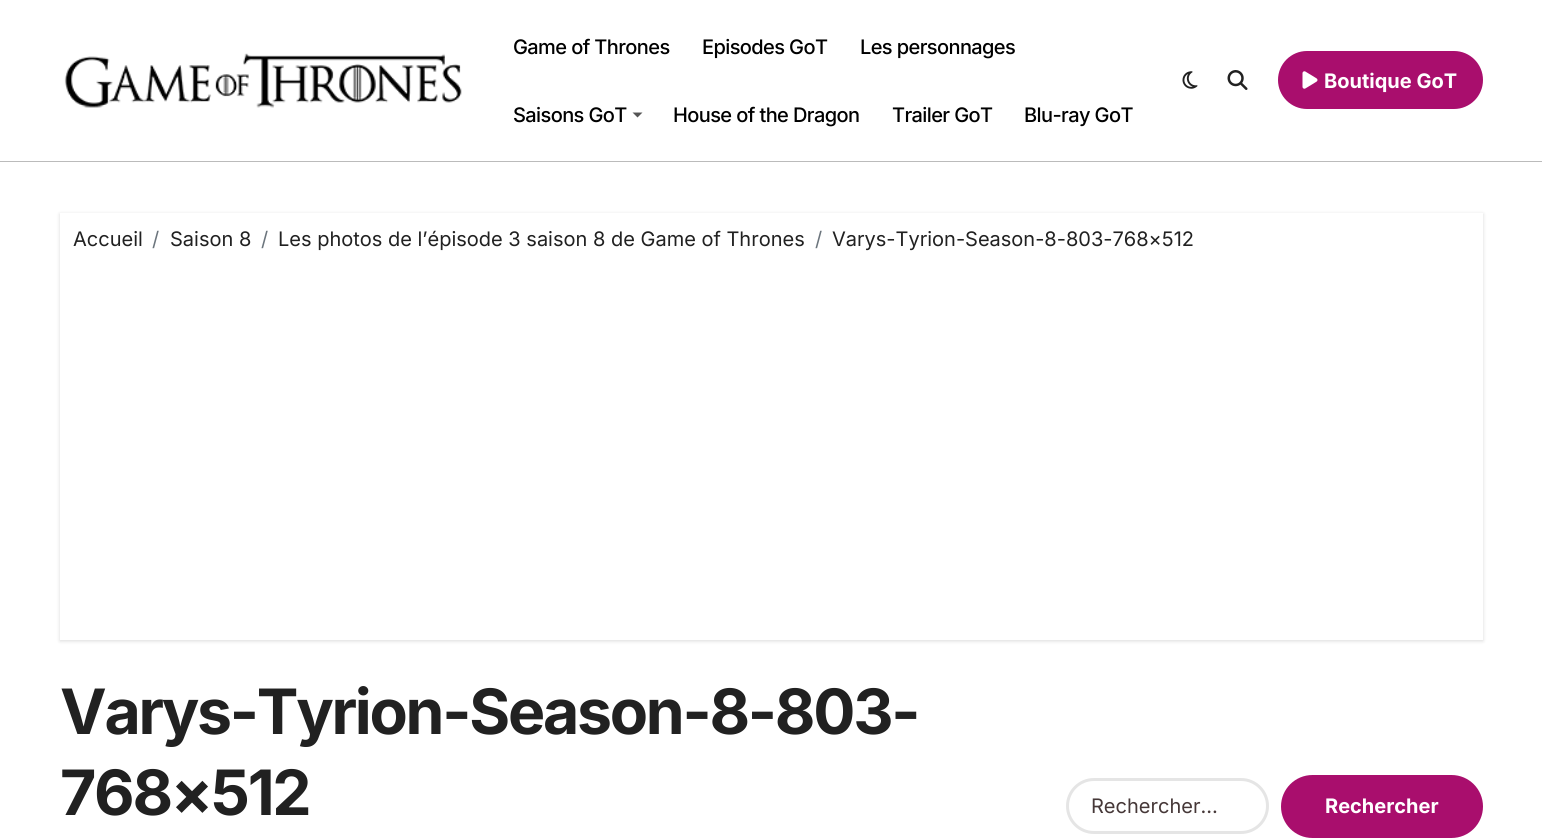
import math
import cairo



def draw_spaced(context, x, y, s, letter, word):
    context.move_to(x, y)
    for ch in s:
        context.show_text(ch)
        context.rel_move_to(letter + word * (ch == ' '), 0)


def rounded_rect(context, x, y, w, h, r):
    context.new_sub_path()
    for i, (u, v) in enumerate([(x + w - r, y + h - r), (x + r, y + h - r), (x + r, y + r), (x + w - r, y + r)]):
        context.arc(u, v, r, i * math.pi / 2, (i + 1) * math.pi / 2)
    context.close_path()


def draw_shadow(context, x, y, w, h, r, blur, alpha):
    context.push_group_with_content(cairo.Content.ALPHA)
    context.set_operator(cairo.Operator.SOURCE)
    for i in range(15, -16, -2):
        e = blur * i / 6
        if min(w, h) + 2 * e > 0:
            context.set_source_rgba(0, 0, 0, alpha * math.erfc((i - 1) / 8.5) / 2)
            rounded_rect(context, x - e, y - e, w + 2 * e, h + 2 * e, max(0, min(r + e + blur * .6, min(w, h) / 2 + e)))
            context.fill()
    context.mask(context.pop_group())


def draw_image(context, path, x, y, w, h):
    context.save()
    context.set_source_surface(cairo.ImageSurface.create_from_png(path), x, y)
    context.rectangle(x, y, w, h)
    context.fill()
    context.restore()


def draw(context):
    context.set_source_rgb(1, 1, 1)
    context.paint()
    context.set_source_rgb(187 / 255, 187 / 255, 187 / 255)
    context.rectangle(0, 161, 1542, 1)
    context.fill()
    draw_image(context, "images/1.png", 64, 53, 398, 55)
    context.set_source_rgb(85 / 255, 85 / 255, 85 / 255)
    context.new_path()
    context.move_to(632.5, 112.5)
    context.line_to(642.5, 112.5)
    context.line_to(637.5, 117.5)
    context.close_path()
    context.fill()
    draw_image(context, "images/2.png", 1182, 71, 16, 18)
    draw_image(context, "images/3.png", 1227, 70, 21, 20)
    context.set_source_rgb(169 / 255, 14 / 255, 109 / 255)
    rounded_rect(context, 1278, 51, 205, 58, 29)
    context.fill()
    draw_image(context, "images/4.png", 1302, 71, 16, 18)
    context.save()
    context.set_fill_rule(cairo.FillRule.EVEN_ODD)
    context.new_path()
    context.move_to(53, 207)
    context.line_to(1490, 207)
    context.line_to(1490, 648)
    context.line_to(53, 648)
    context.close_path()
    context.move_to(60, 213)
    context.line_to(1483, 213)
    context.line_to(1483, 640)
    context.line_to(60, 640)
    context.close_path()
    context.clip()
    context.set_source_rgb(0, 0, 0)
    draw_shadow(context, 60, 214, 1423, 427, 0, 2, 0.15)
    context.restore()
    rounded_rect(context, 1067.5, 779.5, 200, 53, 26.5)
    context.set_source_rgb(229 / 255, 229 / 255, 229 / 255)
    context.set_line_width(3)
    context.stroke()
    context.set_source_rgb(169 / 255, 14 / 255, 109 / 255)
    rounded_rect(context, 1281, 775, 202, 63, 31.5)
    context.fill()
    context.select_font_face("Inter Medium")
    context.set_font_size(20)
    context.set_source_rgb(0, 0, 0)
    draw_spaced(context, 513, 54, "Game of Thrones", -0.6, 0)
    draw_spaced(context, 702, 54, "Episodes GoT", -0.6, 0)
    draw_spaced(context, 860, 54, "Les personnages", -0.6, 0)
    draw_spaced(context, 513, 122, "Saisons GoT", -0.6, 0)
    draw_spaced(context, 673, 122, "House of the Dragon", -0.6, 0)
    draw_spaced(context, 892, 122, "Trailer GoT", -0.6, 0)
    draw_spaced(context, 1024, 122, "Blu-ray GoT", -0.6, 0)
    context.select_font_face("Inter", cairo.FontSlant.NORMAL, cairo.FontWeight.BOLD)
    context.set_source_rgb(1, 1, 1)
    context.move_to(1324, 88)
    context.show_text("Boutique GoT")
    context.select_font_face("Inter")
    context.set_source_rgb(33 / 255, 33 / 255, 33 / 255)
    context.move_to(73, 246)
    context.show_text("Accueil")
    context.set_source_rgb(108 / 255, 117 / 255, 125 / 255)
    context.move_to(152, 246)
    context.show_text("/")
    context.set_source_rgb(33 / 255, 33 / 255, 33 / 255)
    context.move_to(170, 246)
    context.show_text("Saison 8")
    context.set_source_rgb(108 / 255, 117 / 255, 125 / 255)
    context.move_to(261, 246)
    context.show_text("/")
    context.set_source_rgb(33 / 255, 33 / 255, 33 / 255)
    context.move_to(278, 246)
    context.show_text("Les photos de l’épisode 3 saison 8 de Game of Thrones")
    context.set_source_rgb(108 / 255, 117 / 255, 125 / 255)
    context.move_to(815, 246)
    context.show_text("/")
    context.set_source_rgb(33 / 255, 33 / 255, 33 / 255)
    context.move_to(832, 246)
    context.show_text("Varys-Tyrion-Season-8-803-768×512")
    context.select_font_face("Inter", cairo.FontSlant.NORMAL, cairo.FontWeight.BOLD)
    context.set_font_size(62.5)
    draw_spaced(context, 60, 734, "Varys-Tyrion-Season-8-803-", -2.25, 0)
    draw_spaced(context, 60, 815, "768×512", -2.25, 0)
    context.select_font_face("Inter")
    context.set_font_size(20)
    context.set_source_rgb(70 / 255, 56 / 255, 56 / 255)
    context.move_to(1091, 813)
    context.show_text("Rechercher…")
    context.select_font_face("Inter", cairo.FontSlant.NORMAL, cairo.FontWeight.BOLD)
    context.set_source_rgb(1, 1, 1)
    context.move_to(1325, 813)
    context.show_text("Rechercher")


surface = cairo.ImageSurface(cairo.Format.RGB24, 1542, 840)
context = cairo.Context(surface)
options = cairo.FontOptions()
options.set_hint_metrics(cairo.HintMetrics.OFF)
options.set_hint_style(cairo.HintStyle.NONE)
context.set_font_options(options)
context.set_miter_limit(4)
draw(context)
surface.write_to_png("out.png")
